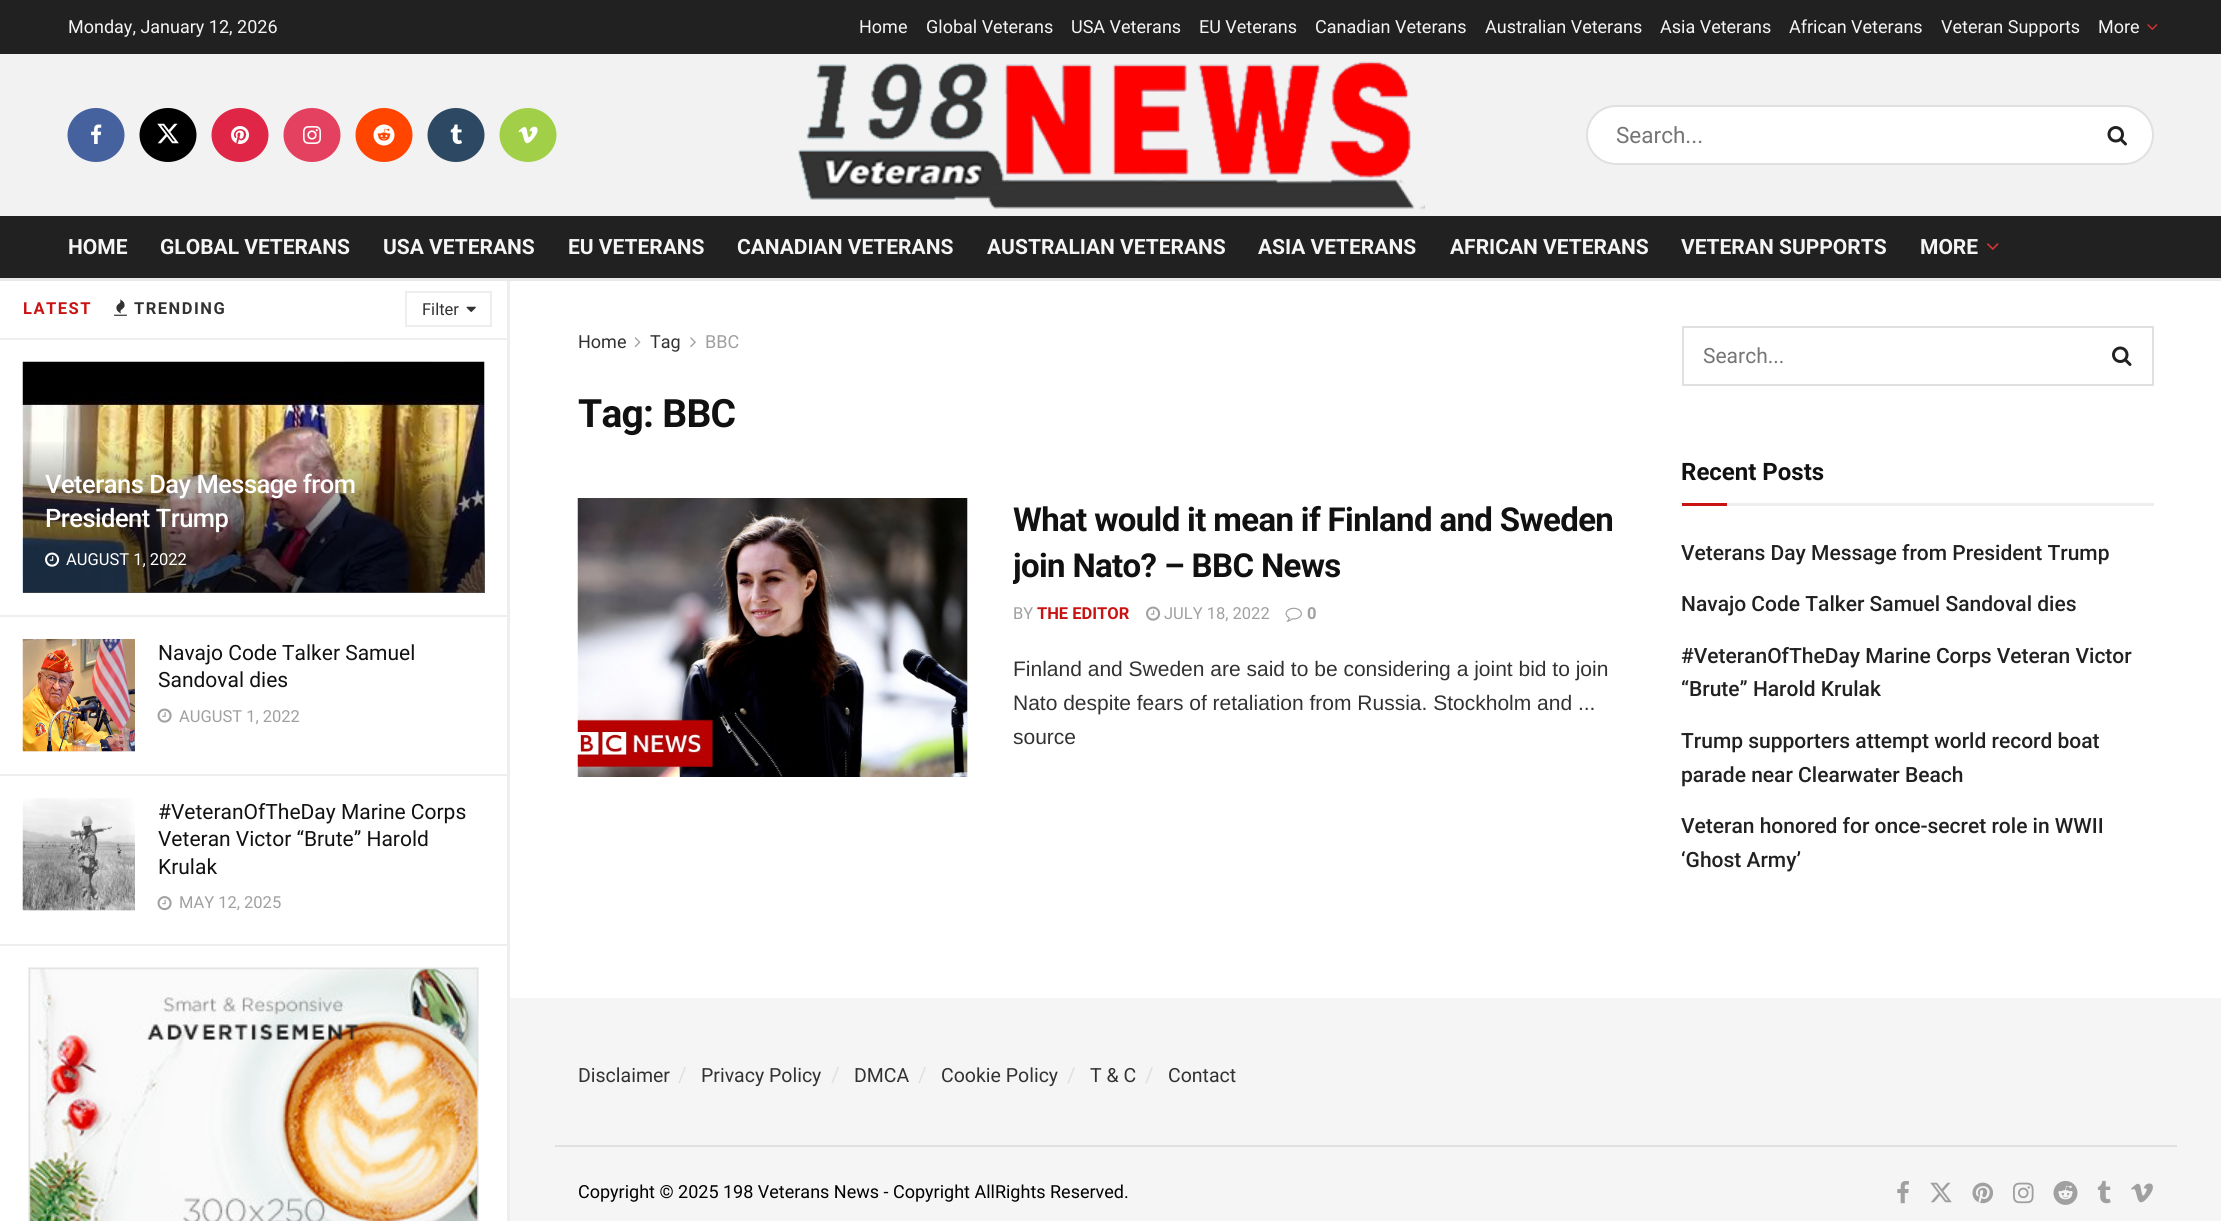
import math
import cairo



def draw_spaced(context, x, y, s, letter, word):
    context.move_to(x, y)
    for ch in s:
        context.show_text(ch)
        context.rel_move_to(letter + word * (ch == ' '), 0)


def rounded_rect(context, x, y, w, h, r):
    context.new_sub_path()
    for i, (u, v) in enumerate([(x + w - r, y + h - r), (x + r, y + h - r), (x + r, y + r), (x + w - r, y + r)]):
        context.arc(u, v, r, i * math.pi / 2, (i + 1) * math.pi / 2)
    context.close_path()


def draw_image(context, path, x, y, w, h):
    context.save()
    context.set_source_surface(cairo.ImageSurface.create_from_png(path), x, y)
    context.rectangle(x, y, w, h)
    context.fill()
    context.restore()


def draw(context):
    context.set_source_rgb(1, 1, 1)
    context.paint()
    context.set_source_rgb(33 / 255, 33 / 255, 33 / 255)
    context.rectangle(0, 0, 2221, 54)
    context.fill()
    draw_image(context, "images/1.png", 2147, 24, 11, 6)
    context.set_source_rgb(242 / 255, 242 / 255, 242 / 255)
    context.rectangle(0, 54, 2221, 162)
    context.fill()
    context.set_source_rgb(69 / 255, 98 / 255, 159 / 255)
    context.new_path()
    context.move_to(96, 108)
    context.curve_to(111.5, 108, 124.5, 120, 124.5, 135)
    context.curve_to(124.5, 150, 111.5, 162, 96, 162)
    context.curve_to(80.5, 162, 67.5, 150, 67.5, 135)
    context.curve_to(67.5, 120, 80.5, 108, 96, 108)
    context.close_path()
    context.fill()
    draw_image(context, "images/2.png", 91, 124, 11, 20)
    context.set_source_rgb(0, 0, 0)
    context.new_path()
    context.move_to(168, 108)
    context.curve_to(183.5, 108, 196.5, 120, 196.5, 135)
    context.curve_to(196.5, 150, 183.5, 162, 168, 162)
    context.curve_to(152.5, 162, 139.5, 150, 139.5, 135)
    context.curve_to(139.5, 120, 152.5, 108, 168, 108)
    context.close_path()
    context.fill()
    draw_image(context, "images/3.png", 157, 123, 22, 21)
    context.set_source_rgb(224 / 255, 38 / 255, 71 / 255)
    context.new_path()
    context.move_to(240, 108)
    context.curve_to(255.5, 108, 268.5, 120, 268.5, 135)
    context.curve_to(268.5, 150, 255.5, 162, 240, 162)
    context.curve_to(224.5, 162, 211.5, 150, 211.5, 135)
    context.curve_to(211.5, 120, 224.5, 108, 240, 108)
    context.close_path()
    context.fill()
    draw_image(context, "images/4.png", 231, 126, 18, 18)
    context.set_source_rgb(228 / 255, 64 / 255, 95 / 255)
    context.new_path()
    context.move_to(312, 108)
    context.curve_to(327.5, 108, 340.5, 120, 340.5, 135)
    context.curve_to(340.5, 150, 327.5, 162, 312, 162)
    context.curve_to(296.5, 162, 283.5, 150, 283.5, 135)
    context.curve_to(283.5, 120, 296.5, 108, 312, 108)
    context.close_path()
    context.fill()
    draw_image(context, "images/5.png", 303, 126, 18, 18)
    context.set_source_rgb(1, 69 / 255, 0)
    context.new_path()
    context.move_to(384, 108)
    context.curve_to(399.5, 108, 412.5, 120, 412.5, 135)
    context.curve_to(412.5, 150, 399.5, 162, 384, 162)
    context.curve_to(368.5, 162, 355.5, 150, 355.5, 135)
    context.curve_to(355.5, 120, 368.5, 108, 384, 108)
    context.close_path()
    context.fill()
    draw_image(context, "images/6.png", 373, 124, 22, 22)
    context.set_source_rgb(45 / 255, 72 / 255, 98 / 255)
    context.new_path()
    context.move_to(456, 108)
    context.curve_to(471.5, 108, 484.5, 120, 484.5, 135)
    context.curve_to(484.5, 150, 471.5, 162, 456, 162)
    context.curve_to(440.5, 162, 427.5, 150, 427.5, 135)
    context.curve_to(427.5, 120, 440.5, 108, 456, 108)
    context.close_path()
    context.fill()
    draw_image(context, "images/7.png", 450, 124, 12, 20)
    context.set_source_rgb(161 / 255, 208 / 255, 72 / 255)
    context.new_path()
    context.move_to(528, 108)
    context.curve_to(543.5, 108, 556.5, 120, 556.5, 135)
    context.curve_to(556.5, 150, 543.5, 162, 528, 162)
    context.curve_to(512.5, 162, 499.5, 150, 499.5, 135)
    context.curve_to(499.5, 120, 512.5, 108, 528, 108)
    context.close_path()
    context.fill()
    draw_image(context, "images/8.png", 518, 126, 20, 18)
    draw_image(context, "images/9.png", 798, 61, 627, 149)
    context.set_source_rgb(1, 1, 1)
    rounded_rect(context, 1587, 106, 566, 58, 29)
    context.fill_preserve()
    context.set_source_rgb(224 / 255, 224 / 255, 224 / 255)
    context.stroke()
    draw_image(context, "images/10.png", 2107, 126, 20, 20)
    context.set_source_rgb(33 / 255, 33 / 255, 33 / 255)
    context.rectangle(0, 216, 2221, 62)
    context.fill()
    context.set_source_rgb(232 / 255, 232 / 255, 232 / 255)
    context.rectangle(0, 278, 2221, 3)
    context.fill()
    draw_image(context, "images/11.png", 1987, 243, 12, 7)
    draw_image(context, "images/12.png", 634, 337, 7, 11)
    draw_image(context, "images/13.png", 690, 337, 6, 11)
    context.set_source_rgb(247 / 255, 247 / 255, 247 / 255)
    context.rectangle(967, 498, 1, 279)
    context.fill()
    draw_image(context, "images/14.png", 577, 498, 391, 279)
    draw_image(context, "images/15.png", 1146, 606, 15, 15)
    draw_image(context, "images/16.png", 1285, 607, 17, 15)
    context.rectangle(1683, 327, 470, 58)
    context.set_source_rgb(224 / 255, 224 / 255, 224 / 255)
    context.stroke()
    draw_image(context, "images/17.png", 2112, 346, 20, 20)
    context.set_source_rgb(238 / 255, 238 / 255, 238 / 255)
    context.rectangle(1727, 503, 427, 3)
    context.fill()
    context.set_source_rgb(201 / 255, 18 / 255, 18 / 255)
    context.rectangle(1682, 503, 45, 3)
    context.fill()
    context.set_source_rgb(245 / 255, 245 / 255, 245 / 255)
    context.rectangle(510, 998, 1711, 223)
    context.fill()
    context.set_source_rgb(224 / 255, 224 / 255, 224 / 255)
    context.rectangle(555, 1145, 1622, 2)
    context.fill()
    draw_image(context, "images/18.png", 1897, 1181, 12, 23)
    draw_image(context, "images/19.png", 1930, 1182, 22, 21)
    draw_image(context, "images/20.png", 1972, 1182, 21, 22)
    draw_image(context, "images/21.png", 2013, 1182, 21, 22)
    draw_image(context, "images/22.png", 2053, 1180, 25, 25)
    draw_image(context, "images/23.png", 2097, 1180, 14, 24)
    draw_image(context, "images/24.png", 2131, 1183, 22, 20)
    context.set_source_rgb(238 / 255, 238 / 255, 238 / 255)
    context.rectangle(507, 281, 3, 940)
    context.fill()
    context.rectangle(0, 338, 507, 2)
    context.fill()
    draw_image(context, "images/25.png", 114, 299, 13, 17)
    context.rectangle(406, 292, 85, 34)
    context.stroke()
    draw_image(context, "images/26.png", 466, 306, 10, 6)
    context.rectangle(0, 615, 507, 2)
    context.fill()
    context.set_source_rgb(247 / 255, 247 / 255, 247 / 255)
    context.rectangle(23, 362, 462, 231)
    context.fill()
    draw_image(context, "images/28.png", 344, 361, 87, 1)
    draw_image(context, "images/27.png", 22, 361, 463, 232)
    gradient = cairo.LinearGradient(254, 438, 254, 593)
    gradient.add_color_stop_rgba(0, 0, 0, 0, 0)
    gradient.add_color_stop_rgba(0.7, 0, 0, 0, 0.65)
    context.set_source(gradient)
    context.rectangle(23, 442, 462, 151)
    context.fill()
    draw_image(context, "images/29.png", 45, 552, 15, 15)
    context.set_source_rgb(238 / 255, 238 / 255, 238 / 255)
    context.rectangle(0, 774, 507, 2)
    context.fill()
    context.set_source_rgb(247 / 255, 247 / 255, 247 / 255)
    context.rectangle(23, 751, 112, 1)
    context.fill()
    draw_image(context, "images/30.png", 22, 639, 113, 113)
    draw_image(context, "images/31.png", 157, 708, 15, 15)
    context.set_source_rgb(238 / 255, 238 / 255, 238 / 255)
    context.rectangle(0, 944, 507, 2)
    context.fill()
    context.set_source_rgb(247 / 255, 247 / 255, 247 / 255)
    context.rectangle(23, 910, 112, 1)
    context.fill()
    draw_image(context, "images/32.png", 22, 798, 113, 113)
    draw_image(context, "images/33.png", 157, 896, 15, 15)
    draw_image(context, "images/34.png", 28, 967, 451, 254)
    context.select_font_face("Roboto")
    context.set_font_size(18)
    context.set_source_rgb(245 / 255, 245 / 255, 245 / 255)
    context.move_to(68, 33)
    context.show_text("Monday, January 12, 2026")
    context.move_to(859, 33)
    context.show_text("Home")
    context.move_to(926, 33)
    context.show_text("Global Veterans")
    context.move_to(1071, 33)
    context.show_text("USA Veterans")
    context.move_to(1199, 33)
    context.show_text("EU Veterans")
    context.move_to(1315, 33)
    context.show_text("Canadian Veterans")
    context.move_to(1485, 33)
    context.show_text("Australian Veterans")
    context.move_to(1660, 33)
    context.show_text("Asia Veterans")
    context.move_to(1789, 33)
    context.show_text("African Veterans")
    context.move_to(1941, 33)
    context.show_text("Veteran Supports")
    context.move_to(2098, 33)
    context.show_text("More")
    context.set_font_size(22.5)
    context.set_source_rgb(117 / 255, 117 / 255, 117 / 255)
    context.move_to(1616, 143)
    context.show_text("Search...")
    context.select_font_face("Roboto", cairo.FontSlant.NORMAL, cairo.FontWeight.BOLD)
    context.set_font_size(21)
    context.set_source_rgb(245 / 255, 245 / 255, 245 / 255)
    context.move_to(68, 254)
    context.show_text("HOME")
    context.move_to(160, 254)
    context.show_text("GLOBAL VETERANS")
    context.move_to(383, 254)
    context.show_text("USA VETERANS")
    context.move_to(568, 254)
    context.show_text("EU VETERANS")
    context.move_to(737, 254)
    context.show_text("CANADIAN VETERANS")
    context.move_to(987, 254)
    context.show_text("AUSTRALIAN VETERANS")
    context.move_to(1258, 254)
    context.show_text("ASIA VETERANS")
    context.move_to(1450, 254)
    context.show_text("AFRICAN VETERANS")
    context.move_to(1681, 254)
    context.show_text("VETERAN SUPPORTS")
    context.move_to(1920, 254)
    context.show_text("MORE")
    context.select_font_face("Roboto")
    context.set_font_size(18)
    context.set_source_rgb(50 / 255, 50 / 255, 50 / 255)
    context.move_to(578, 348)
    context.show_text("Home")
    context.move_to(650, 348)
    context.show_text("Tag")
    context.set_source_rgb(160 / 255, 160 / 255, 160 / 255)
    context.move_to(705, 348)
    context.show_text("BBC")
    context.select_font_face("Roboto", cairo.FontSlant.NORMAL, cairo.FontWeight.BOLD)
    context.set_font_size(39)
    context.set_source_rgb(17 / 255, 17 / 255, 17 / 255)
    draw_spaced(context, 578, 427, "Tag: BBC", -0.75, 0)
    context.set_font_size(33)
    draw_spaced(context, 1013, 531, "What would it mean if Finland and Sweden", -0.65, 0)
    context.save()
    context.rectangle(1013, 498, 601, 255)
    context.clip()
    draw_spaced(context, 1013, 577, "join Nato? – BBC News", -0.65, 0)
    context.restore()
    context.select_font_face("Roboto")
    context.set_font_size(16.5)
    context.set_source_rgb(160 / 255, 160 / 255, 160 / 255)
    context.move_to(1013, 619)
    context.show_text("BY")
    context.select_font_face("Roboto", cairo.FontSlant.NORMAL, cairo.FontWeight.BOLD)
    context.set_source_rgb(201 / 255, 18 / 255, 18 / 255)
    context.move_to(1037, 619)
    context.show_text("THE EDITOR")
    context.select_font_face("Roboto")
    context.set_source_rgb(160 / 255, 160 / 255, 160 / 255)
    context.move_to(1164, 619)
    context.show_text("JULY 18, 2022")
    context.select_font_face("Roboto", cairo.FontSlant.NORMAL, cairo.FontWeight.BOLD)
    context.move_to(1307, 619)
    context.show_text("0")
    context.select_font_face("Liberation Sans")
    context.set_font_size(21)
    context.set_source_rgb(50 / 255, 50 / 255, 50 / 255)
    context.move_to(1013, 676)
    context.show_text("Finland and Sweden are said to be considering a joint bid to join")
    context.move_to(1013, 710)
    context.show_text("Nato despite fears of retaliation from Russia. Stockholm and ...")
    context.move_to(1013, 744)
    context.show_text("source")
    context.select_font_face("Roboto")
    context.set_source_rgb(117 / 255, 117 / 255, 117 / 255)
    context.move_to(1703, 363)
    context.show_text("Search...")
    context.select_font_face("Roboto", cairo.FontSlant.NORMAL, cairo.FontWeight.BOLD)
    context.set_font_size(24)
    context.set_source_rgb(17 / 255, 17 / 255, 17 / 255)
    context.move_to(1681, 480)
    context.show_text("Recent Posts")
    context.select_font_face("Roboto Medium")
    context.set_font_size(21)
    context.set_source_rgb(33 / 255, 33 / 255, 33 / 255)
    context.move_to(1681, 560)
    context.show_text("Veterans Day Message from President Trump")
    context.move_to(1681, 611)
    context.show_text("Navajo Code Talker Samuel Sandoval dies")
    context.move_to(1681, 663)
    context.show_text("#VeteranOfTheDay Marine Corps Veteran Victor")
    context.move_to(1681, 696)
    context.show_text("“Brute” Harold Krulak")
    context.move_to(1681, 748)
    context.show_text("Trump supporters attempt world record boat")
    context.move_to(1681, 782)
    context.show_text("parade near Clearwater Beach")
    context.move_to(1681, 833)
    context.show_text("Veteran honored for once-secret role in WWII")
    context.move_to(1681, 867)
    context.show_text("‘Ghost Army’")
    context.select_font_face("Roboto")
    context.set_font_size(19.5)
    context.set_source_rgb(50 / 255, 50 / 255, 50 / 255)
    context.move_to(578, 1082)
    context.show_text("Disclaimer")
    context.set_font_size(21)
    context.set_source_rgb(224 / 255, 224 / 255, 224 / 255)
    context.move_to(678, 1082)
    context.show_text("/")
    context.set_font_size(19.5)
    context.set_source_rgb(50 / 255, 50 / 255, 50 / 255)
    context.move_to(701, 1082)
    context.show_text("Privacy Policy")
    context.set_font_size(21)
    context.set_source_rgb(224 / 255, 224 / 255, 224 / 255)
    context.move_to(831, 1082)
    context.show_text("/")
    context.set_font_size(19.5)
    context.set_source_rgb(50 / 255, 50 / 255, 50 / 255)
    context.move_to(854, 1082)
    context.show_text("DMCA")
    context.set_font_size(21)
    context.set_source_rgb(224 / 255, 224 / 255, 224 / 255)
    context.move_to(918, 1082)
    context.show_text("/")
    context.set_font_size(19.5)
    context.set_source_rgb(50 / 255, 50 / 255, 50 / 255)
    context.move_to(941, 1082)
    context.show_text("Cookie Policy")
    context.set_font_size(21)
    context.set_source_rgb(224 / 255, 224 / 255, 224 / 255)
    context.move_to(1067, 1082)
    context.show_text("/")
    context.set_font_size(19.5)
    context.set_source_rgb(50 / 255, 50 / 255, 50 / 255)
    context.move_to(1090, 1082)
    context.show_text("T & C")
    context.set_font_size(21)
    context.set_source_rgb(224 / 255, 224 / 255, 224 / 255)
    context.move_to(1145, 1082)
    context.show_text("/")
    context.set_font_size(19.5)
    context.set_source_rgb(50 / 255, 50 / 255, 50 / 255)
    context.move_to(1168, 1082)
    context.show_text("Contact")
    context.set_font_size(18)
    context.set_source_rgb(0, 0, 0)
    context.move_to(578, 1198)
    context.show_text("Copyright © 2025 198 Veterans News - Copyright AllRights Reserved.")
    context.select_font_face("Roboto", cairo.FontSlant.NORMAL, cairo.FontWeight.BOLD)
    context.set_font_size(16.5)
    context.set_source_rgb(201 / 255, 18 / 255, 18 / 255)
    draw_spaced(context, 23, 314, "LATEST", 1.5, 0)
    context.set_source_rgb(50 / 255, 50 / 255, 50 / 255)
    draw_spaced(context, 134, 314, "TRENDING", 1.5, 0)
    context.select_font_face("Roboto")
    context.move_to(422, 315)
    context.show_text("Filter")
    context.select_font_face("Roboto Medium")
    context.set_font_size(25.5)
    context.set_source_rgb(1, 1, 1)
    draw_spaced(context, 45, 493, "Veterans Day Message from", -0.5, 0)
    draw_spaced(context, 45, 527, "President Trump", -0.5, 0)
    context.select_font_face("Roboto")
    context.set_font_size(16.5)
    context.move_to(66, 565)
    context.show_text("AUGUST 1, 2022")
    context.set_font_size(21)
    context.set_source_rgb(17 / 255, 17 / 255, 17 / 255)
    context.move_to(158, 660)
    context.show_text("Navajo Code Talker Samuel")
    context.move_to(158, 687)
    context.show_text("Sandoval dies")
    context.set_font_size(16.5)
    context.set_source_rgb(160 / 255, 160 / 255, 160 / 255)
    context.move_to(179, 722)
    context.show_text("AUGUST 1, 2022")
    context.set_font_size(21)
    context.set_source_rgb(17 / 255, 17 / 255, 17 / 255)
    context.move_to(158, 819)
    context.show_text("#VeteranOfTheDay Marine Corps")
    context.move_to(158, 846)
    context.show_text("Veteran Victor “Brute” Harold")
    context.move_to(158, 874)
    context.show_text("Krulak")
    context.set_font_size(16.5)
    context.set_source_rgb(160 / 255, 160 / 255, 160 / 255)
    context.move_to(179, 908)
    context.show_text("MAY 12, 2025")


surface = cairo.ImageSurface(cairo.Format.RGB24, 2221, 1221)
context = cairo.Context(surface)
options = cairo.FontOptions()
options.set_hint_metrics(cairo.HintMetrics.OFF)
options.set_hint_style(cairo.HintStyle.NONE)
context.set_font_options(options)
context.set_miter_limit(4)
draw(context)
surface.write_to_png("out.png")
